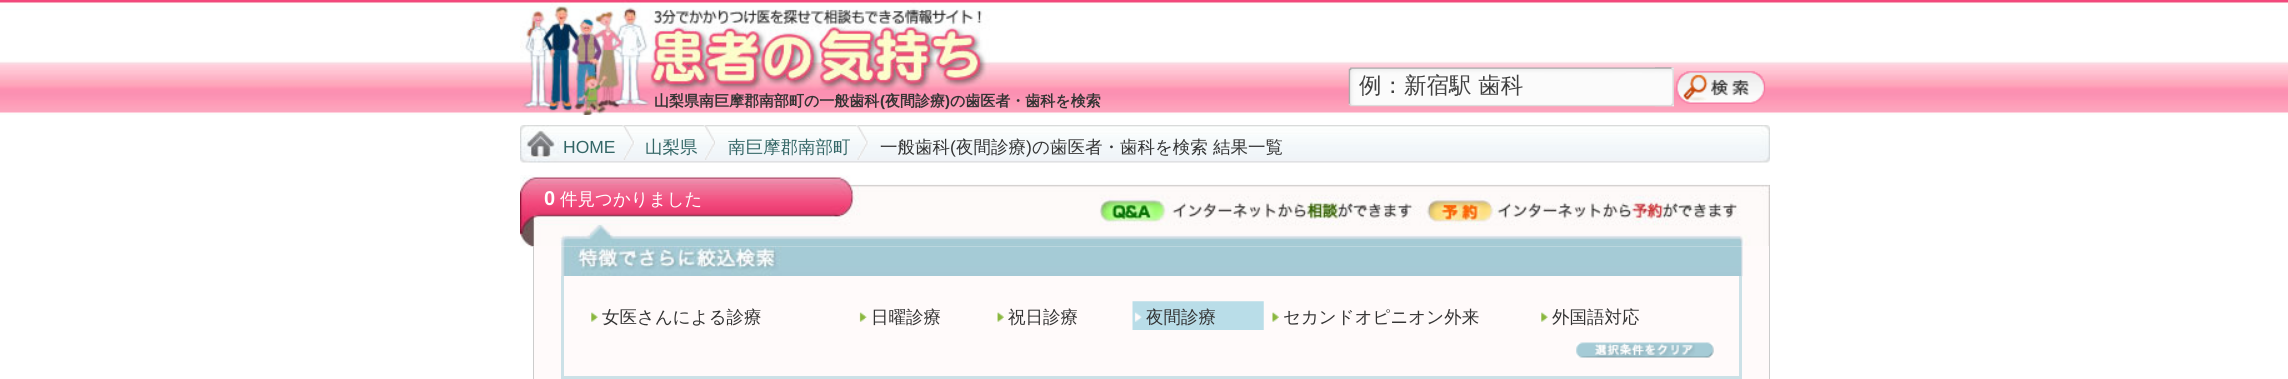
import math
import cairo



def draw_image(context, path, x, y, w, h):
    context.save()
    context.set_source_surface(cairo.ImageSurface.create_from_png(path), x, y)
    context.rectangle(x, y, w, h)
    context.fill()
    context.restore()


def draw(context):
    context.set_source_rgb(1, 1, 1)
    context.paint()
    draw_image(context, "images/1.png", 0, 0, 2288, 115)
    draw_image(context, "images/2.png", 520, 0, 470, 115)
    draw_image(context, "images/3.png", 1348, 67, 326, 40)
    draw_image(context, "images/4.png", 1655, 67, 19, 40)
    draw_image(context, "images/5.png", 1676, 71, 90, 33)
    draw_image(context, "images/6.png", 520, 125, 1250, 38)
    draw_image(context, "images/7.png", 622, 125, 13, 35)
    draw_image(context, "images/8.png", 703, 125, 12, 35)
    draw_image(context, "images/9.png", 856, 125, 13, 35)
    draw_image(context, "images/10.png", 520, 175, 1250, 72)
    context.set_source_rgb(1, 250 / 255, 250 / 255)
    context.rectangle(534, 246, 1235, 133)
    context.fill()
    context.set_source_rgb(204 / 255, 204 / 255, 204 / 255)
    context.rectangle(1769, 246, 1, 133)
    context.fill()
    context.rectangle(533, 246, 1, 133)
    context.fill()
    draw_image(context, "images/11.png", 561, 246, 1182, 31)
    context.set_source_rgb(1, 250 / 255, 250 / 255)
    context.rectangle(564, 276, 1175, 1)
    context.fill()
    context.set_source_rgb(204 / 255, 225 / 255, 231 / 255)
    context.rectangle(1739, 276, 3, 103)
    context.fill()
    context.rectangle(561, 376, 1180, 3)
    context.fill()
    context.rectangle(561, 276, 3, 103)
    context.fill()
    draw_image(context, "images/12.png", 591, 312, 7, 10)
    draw_image(context, "images/13.png", 859, 312, 8, 10)
    draw_image(context, "images/14.png", 997, 312, 7, 10)
    draw_image(context, "images/15.png", 1132, 301, 132, 29)
    draw_image(context, "images/16.png", 1272, 312, 7, 10)
    draw_image(context, "images/12.png", 1541, 312, 7, 10)
    draw_image(context, "images/17.png", 1576, 342, 138, 16)
    context.select_font_face("WenQuanYi Zen Hei Medium")
    context.set_font_size(22.5)
    context.set_source_rgb(64 / 255, 64 / 255, 64 / 255)
    context.move_to(1359, 93)
    context.show_text("例：新宿駅 歯科")
    context.select_font_face("WenQuanYi Zen Hei", cairo.FontSlant.NORMAL, cairo.FontWeight.BOLD)
    context.set_font_size(15)
    context.set_source_rgb(51 / 255, 51 / 255, 51 / 255)
    context.move_to(654, 106)
    context.show_text("山梨県南巨摩郡南部町の一般歯科")
    context.select_font_face("Liberation Sans", cairo.FontSlant.NORMAL, cairo.FontWeight.BOLD)
    context.move_to(880, 106)
    context.show_text("(")
    context.select_font_face("WenQuanYi Zen Hei", cairo.FontSlant.NORMAL, cairo.FontWeight.BOLD)
    context.move_to(885, 106)
    context.show_text("夜間診療")
    context.select_font_face("Liberation Sans", cairo.FontSlant.NORMAL, cairo.FontWeight.BOLD)
    context.move_to(945, 106)
    context.show_text(")")
    context.select_font_face("WenQuanYi Zen Hei", cairo.FontSlant.NORMAL, cairo.FontWeight.BOLD)
    context.move_to(950, 106)
    context.show_text("の歯医者・歯科を検索")
    context.select_font_face("Liberation Sans")
    context.set_font_size(17.5)
    context.set_source_rgb(51 / 255, 102 / 255, 102 / 255)
    context.move_to(563, 153)
    context.show_text("HOME")
    context.select_font_face("WenQuanYi Zen Hei Medium")
    context.move_to(645, 153)
    context.show_text("山梨県")
    context.move_to(728, 153)
    context.show_text("南巨摩郡南部町")
    context.set_source_rgb(51 / 255, 51 / 255, 51 / 255)
    context.move_to(880, 153)
    context.show_text("一般歯科")
    context.select_font_face("Liberation Sans")
    context.move_to(950, 153)
    context.show_text("(")
    context.select_font_face("WenQuanYi Zen Hei Medium")
    context.move_to(956, 153)
    context.show_text("夜間診療")
    context.select_font_face("Liberation Sans")
    context.move_to(1026, 153)
    context.show_text(")")
    context.select_font_face("WenQuanYi Zen Hei Medium")
    context.move_to(1032, 153)
    context.show_text("の歯医者・歯科を検索 結果一覧")
    context.select_font_face("Liberation Sans", cairo.FontSlant.NORMAL, cairo.FontWeight.BOLD)
    context.set_font_size(20)
    context.set_source_rgb(1, 1, 1)
    context.move_to(544, 205)
    context.show_text("0")
    context.select_font_face("WenQuanYi Zen Hei Medium")
    context.set_font_size(17.5)
    context.move_to(560, 205)
    context.show_text("件見つかりました")
    context.set_source_rgb(51 / 255, 51 / 255, 51 / 255)
    context.move_to(602, 323)
    context.show_text("女医さんによる診療")
    context.move_to(871, 323)
    context.show_text("日曜診療")
    context.move_to(1008, 323)
    context.show_text("祝日診療")
    context.move_to(1146, 323)
    context.show_text("夜間診療")
    context.move_to(1283, 323)
    context.show_text("セカンドオピニオン外来")
    context.move_to(1552, 323)
    context.show_text("外国語対応")


surface = cairo.ImageSurface(cairo.Format.RGB24, 2288, 379)
context = cairo.Context(surface)
options = cairo.FontOptions()
options.set_hint_metrics(cairo.HintMetrics.OFF)
options.set_hint_style(cairo.HintStyle.NONE)
context.set_font_options(options)
context.set_miter_limit(4)
draw(context)
surface.write_to_png("out.png")
